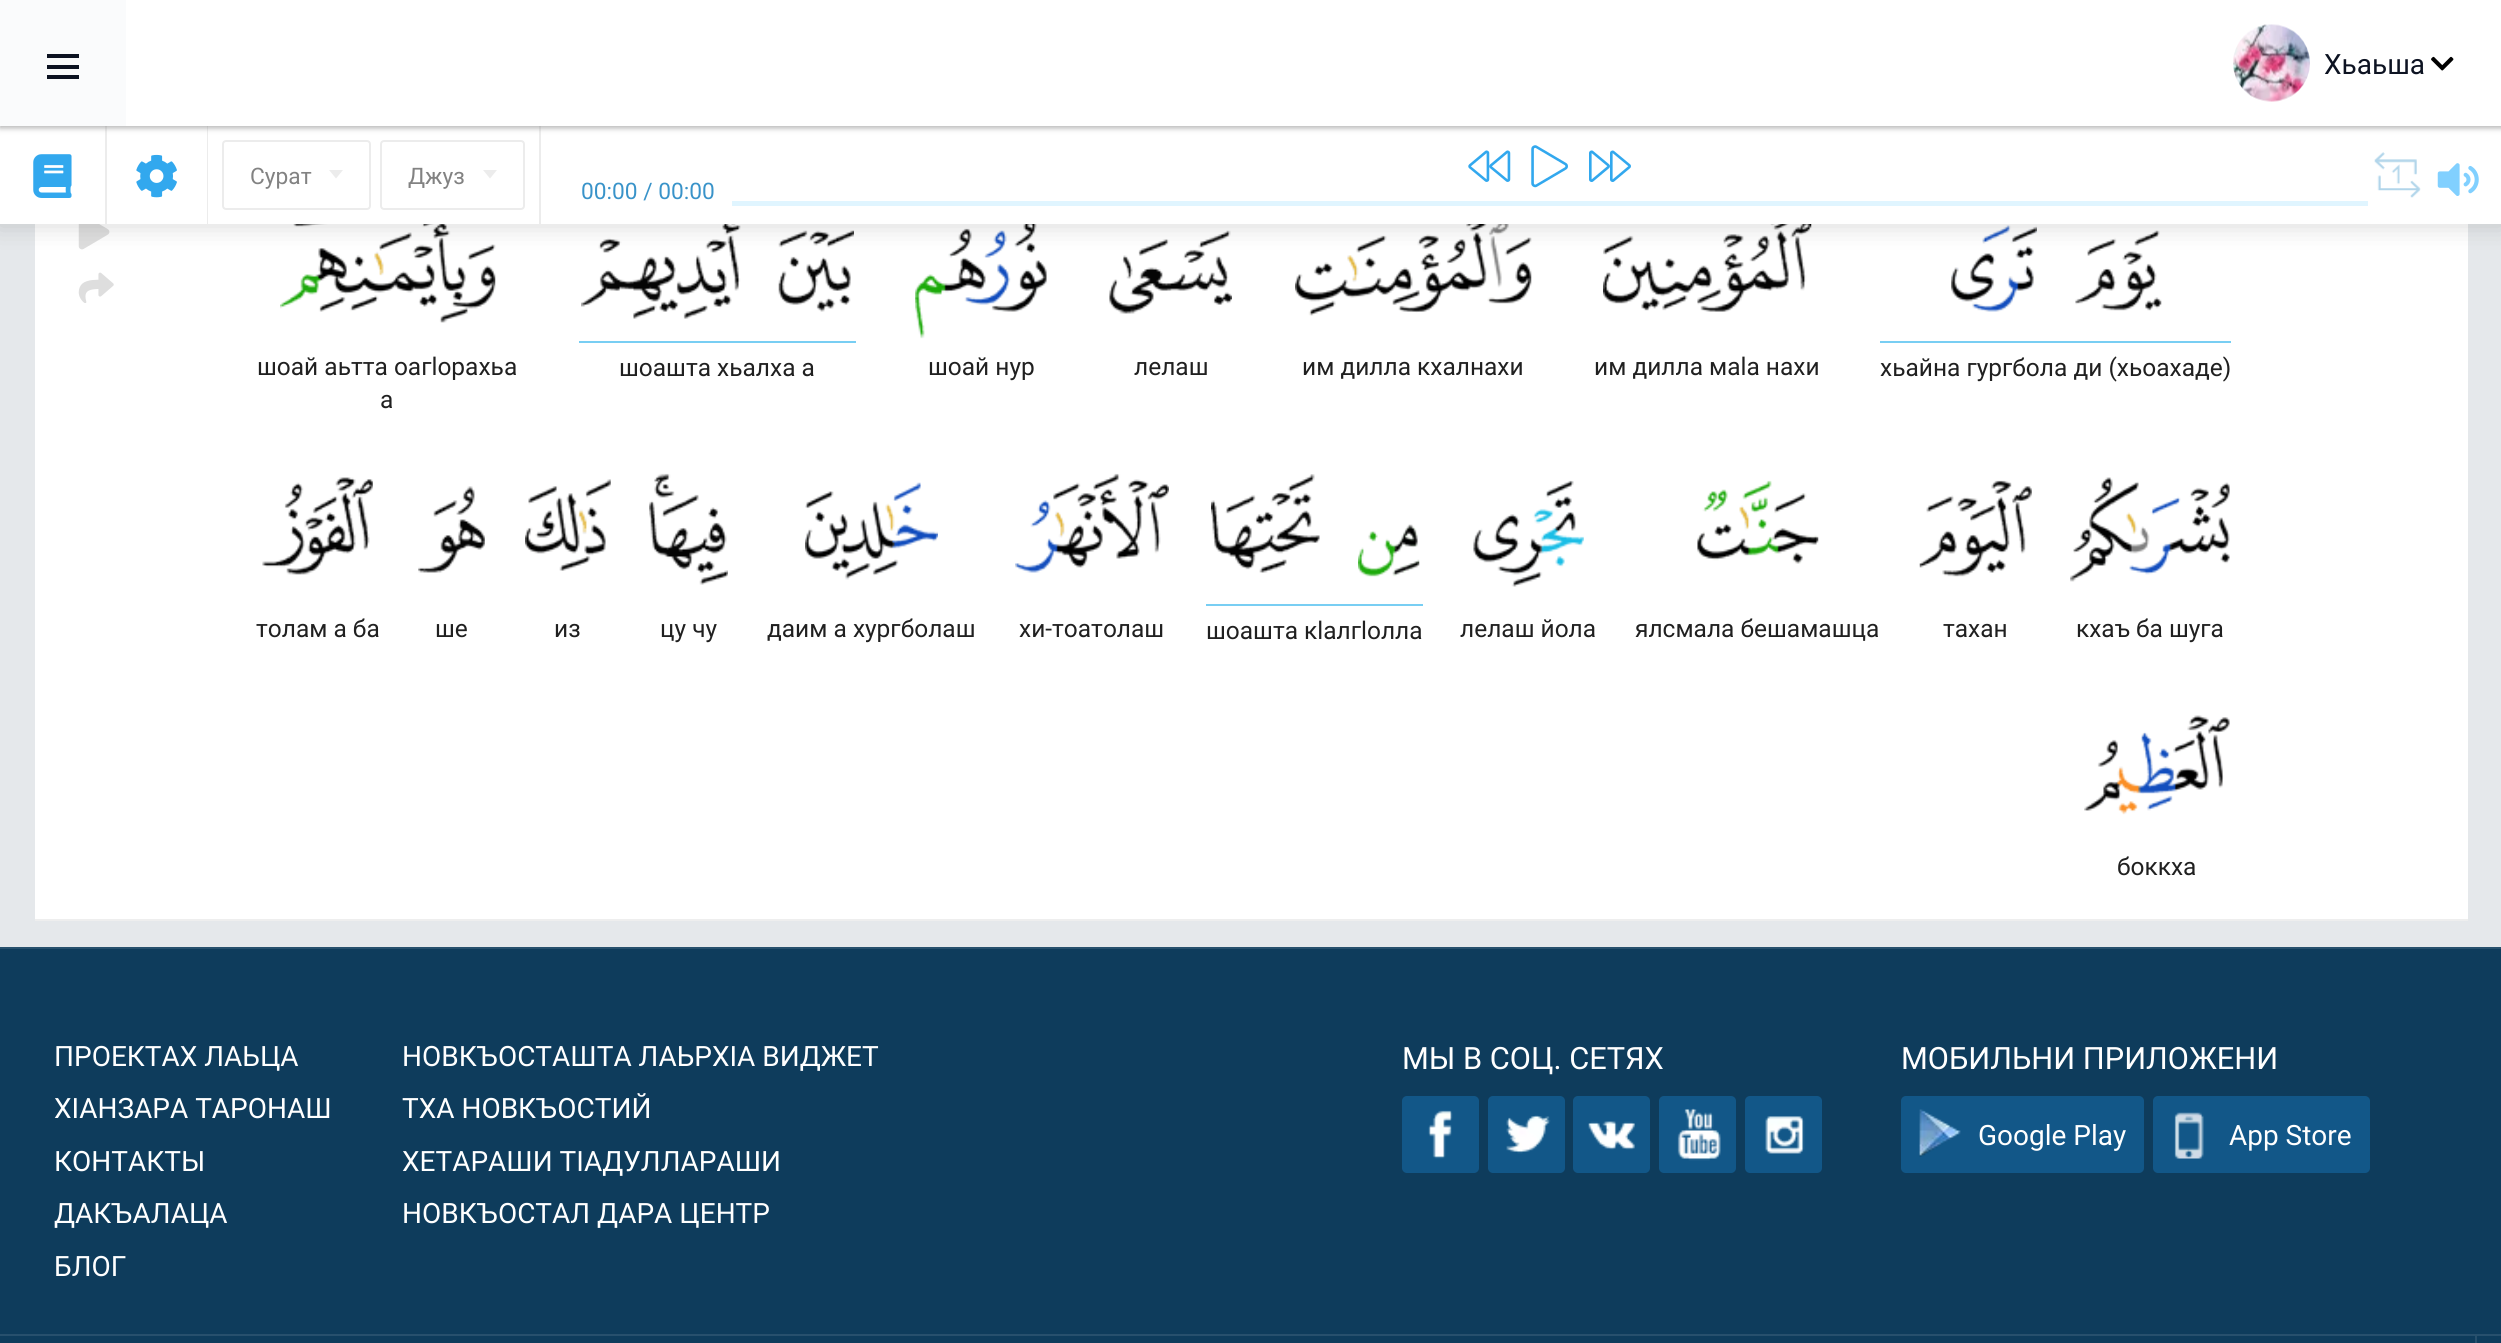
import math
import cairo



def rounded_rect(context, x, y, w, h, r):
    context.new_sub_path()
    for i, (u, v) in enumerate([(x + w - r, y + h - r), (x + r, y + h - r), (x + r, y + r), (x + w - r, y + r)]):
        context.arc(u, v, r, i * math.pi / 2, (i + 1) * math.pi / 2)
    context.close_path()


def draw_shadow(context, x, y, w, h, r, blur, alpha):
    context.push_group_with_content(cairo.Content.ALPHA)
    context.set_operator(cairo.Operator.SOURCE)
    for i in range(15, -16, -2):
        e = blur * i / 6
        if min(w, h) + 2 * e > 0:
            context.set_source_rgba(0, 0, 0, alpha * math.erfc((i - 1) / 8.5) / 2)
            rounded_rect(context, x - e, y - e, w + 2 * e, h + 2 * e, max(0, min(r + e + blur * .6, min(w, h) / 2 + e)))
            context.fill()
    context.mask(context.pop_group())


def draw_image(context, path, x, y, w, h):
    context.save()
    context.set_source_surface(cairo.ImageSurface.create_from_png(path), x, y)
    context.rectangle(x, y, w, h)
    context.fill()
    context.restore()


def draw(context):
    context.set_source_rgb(229 / 255, 232 / 255, 235 / 255)
    context.paint()
    context.set_source_rgb(1, 1, 1)
    context.rectangle(35, 224, 2433, 695)
    context.fill()
    draw_image(context, "images/10.png", 78, 224, 32, 26)
    draw_image(context, "images/12.png", 280, 224, 216, 99)
    draw_image(context, "images/13.png", 581, 224, 160, 95)
    draw_image(context, "images/14.png", 778, 230, 76, 82)
    draw_image(context, "images/15.png", 915, 224, 132, 115)
    draw_image(context, "images/16.png", 1109, 230, 123, 84)
    draw_image(context, "images/17.png", 1295, 224, 237, 92)
    draw_image(context, "images/18.png", 1603, 224, 209, 88)
    draw_image(context, "images/19.png", 1951, 225, 86, 87)
    draw_image(context, "images/20.png", 2075, 230, 87, 81)
    context.set_source_rgb(0, 0, 0)
    draw_shadow(context, -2, 124, 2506, 102, 0, 13, 0.15)
    context.set_source_rgb(1, 1, 1)
    context.rectangle(0, 126, 2501, 98)
    context.fill()
    context.set_source_rgb(236 / 255, 236 / 255, 236 / 255)
    context.rectangle(207, 126, 1, 98)
    context.fill()
    context.rectangle(105, 126, 2, 98)
    context.fill()
    context.rectangle(539, 126, 2, 98)
    context.fill()
    context.set_source_rgb(0, 0, 0)
    draw_shadow(context, 0, 2, 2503, 126, 0, 2, 0.2)
    context.set_source_rgb(170 / 255, 170 / 255, 170 / 255)
    draw_shadow(context, 0, 2, 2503, 126, 0, 3.5, 0.5)
    context.set_source_rgb(1, 1, 1)
    context.rectangle(126, 0, 2375, 126)
    context.fill()
    context.set_source_rgb(250 / 255, 251 / 255, 252 / 255)
    context.rectangle(0, 0, 126, 126)
    context.fill()
    context.set_source_rgb(13 / 255, 19 / 255, 34 / 255)
    context.rectangle(47, 54, 32, 4)
    context.fill()
    context.rectangle(47, 65, 32, 4)
    context.fill()
    context.rectangle(47, 75, 32, 4)
    context.fill()
    draw_image(context, "images/1.png", 2233, 24, 77, 78)
    draw_image(context, "images/2.png", 2431, 56, 23, 15)
    draw_image(context, "images/3.png", 33, 154, 39, 44)
    draw_image(context, "images/4.png", 136, 154, 41, 44)
    rounded_rect(context, 223, 141, 147, 68, 3)
    context.set_source_rgb(236 / 255, 236 / 255, 236 / 255)
    context.stroke()
    context.new_path()
    context.move_to(329, 170)
    context.line_to(343, 170)
    context.line_to(336, 178.5)
    context.close_path()
    context.fill()
    rounded_rect(context, 381, 141, 143, 68, 3)
    context.stroke()
    context.new_path()
    context.move_to(483, 170)
    context.line_to(497, 170)
    context.line_to(490, 178.5)
    context.close_path()
    context.fill()
    draw_image(context, "images/5.png", 1468, 150, 43, 32)
    draw_image(context, "images/6.png", 1531, 145, 37, 43)
    draw_image(context, "images/7.png", 1589, 150, 42, 32)
    context.set_source_rgb(224 / 255, 245 / 255, 1)
    context.rectangle(732, 201, 1636, 5)
    context.fill()
    draw_image(context, "images/8.png", 2374, 152, 47, 46)
    draw_image(context, "images/9.png", 2437, 163, 42, 33)
    context.set_source_rgb(238 / 255, 238 / 255, 238 / 255)
    context.rectangle(35, 919, 2433, 2)
    context.fill()
    draw_image(context, "images/11.png", 78, 272, 36, 31)
    context.set_source_rgb(120 / 255, 206 / 255, 243 / 255)
    context.rectangle(579, 341, 277, 2)
    context.fill()
    context.rectangle(1880, 341, 351, 2)
    context.fill()
    draw_image(context, "images/21.png", 262, 477, 111, 98)
    draw_image(context, "images/22.png", 418, 486, 67, 87)
    draw_image(context, "images/23.png", 525, 479, 86, 92)
    draw_image(context, "images/24.png", 649, 473, 79, 112)
    draw_image(context, "images/25.png", 805, 482, 133, 98)
    draw_image(context, "images/26.png", 1015, 473, 154, 100)
    draw_image(context, "images/27.png", 1211, 474, 109, 99)
    draw_image(context, "images/28.png", 1358, 524, 62, 53)
    context.rectangle(1206, 604, 217, 2)
    context.fill()
    draw_image(context, "images/29.png", 1473, 480, 111, 107)
    draw_image(context, "images/30.png", 1697, 480, 122, 84)
    draw_image(context, "images/31.png", 1919, 480, 113, 97)
    draw_image(context, "images/32.png", 2070, 477, 160, 105)
    draw_image(context, "images/33.png", 2084, 715, 146, 100)
    context.set_source_rgb(14 / 255, 60 / 255, 92 / 255)
    context.rectangle(0, 949, 2501, 385)
    context.fill()
    context.set_source_rgb(39 / 255, 80 / 255, 109 / 255)
    context.rectangle(0, 947, 2501, 2)
    context.fill()
    context.set_source_rgb(18 / 255, 87 / 255, 136 / 255)
    rounded_rect(context, 1402, 1096, 77, 77, 5)
    context.fill()
    draw_image(context, "images/34.png", 1428, 1110, 25, 49)
    rounded_rect(context, 1488, 1096, 77, 77, 5)
    context.fill()
    draw_image(context, "images/35.png", 1506, 1115, 45, 39)
    rounded_rect(context, 1573, 1096, 77, 77, 5)
    context.fill()
    draw_image(context, "images/36.png", 1588, 1121, 47, 29)
    rounded_rect(context, 1659, 1096, 77, 77, 5)
    context.fill()
    draw_image(context, "images/37.png", 1677, 1108, 44, 53)
    rounded_rect(context, 1745, 1096, 77, 77, 5)
    context.fill()
    draw_image(context, "images/38.png", 1765, 1116, 40, 38)
    rounded_rect(context, 1901, 1096, 243, 77, 5)
    context.fill()
    draw_image(context, "images/39.png", 1919, 1109, 42, 48)
    rounded_rect(context, 2153, 1096, 217, 77, 5)
    context.fill()
    draw_image(context, "images/40.png", 2174, 1112, 30, 47)
    context.set_source_rgb(14 / 255, 60 / 255, 92 / 255)
    context.rectangle(0, 1336, 2501, 7)
    context.fill()
    context.set_source_rgb(39 / 255, 80 / 255, 109 / 255)
    context.rectangle(0, 1334, 2501, 2)
    context.fill()
    context.rectangle(2475, 1335, 2, 8)
    context.fill()
    context.select_font_face("Roboto")
    context.set_font_size(28)
    context.set_source_rgb(13 / 255, 19 / 255, 34 / 255)
    context.move_to(2324, 74)
    context.show_text("Хьаьша")
    context.set_font_size(22.75)
    context.set_source_rgb(130 / 255, 130 / 255, 130 / 255)
    context.move_to(250, 184)
    context.show_text("Сурат")
    context.move_to(408, 184)
    context.show_text("Джуз")
    context.set_source_rgb(57 / 255, 147 / 255, 201 / 255)
    context.move_to(581, 199)
    context.show_text("00:00 / 00:00")
    context.set_font_size(24.5)
    context.set_source_rgb(32 / 255, 32 / 255, 32 / 255)
    context.move_to(257, 375)
    context.show_text("шоай аьтта оагlорахьа")
    context.move_to(380, 408)
    context.show_text("а")
    context.move_to(619, 376)
    context.show_text("шоашта хьалха а")
    context.move_to(928, 375)
    context.show_text("шоай нур")
    context.move_to(1134, 375)
    context.show_text("лелаш")
    context.move_to(1302, 375)
    context.show_text("им дилла кхалнахи")
    context.move_to(1594, 375)
    context.show_text("им дилла маlа нахи")
    context.move_to(1880, 376)
    context.show_text("хьайна гургбола ди (хьоахаде)")
    context.move_to(256, 637)
    context.show_text("толам а ба")
    context.move_to(435, 637)
    context.show_text("ше")
    context.move_to(554, 637)
    context.show_text("из")
    context.move_to(660, 637)
    context.show_text("цу чу")
    context.move_to(767, 637)
    context.show_text("даим а хургболаш")
    context.move_to(1019, 637)
    context.show_text("хи-тоатолаш")
    context.move_to(1206, 639)
    context.show_text("шоашта кlалгlолла")
    context.move_to(1460, 637)
    context.show_text("лелаш йола")
    context.move_to(1635, 637)
    context.show_text("ялсмала бешамашца")
    context.move_to(1943, 637)
    context.show_text("тахан")
    context.move_to(2076, 637)
    context.show_text("кхаъ ба шуга")
    context.move_to(2117, 875)
    context.show_text("боккха")
    context.set_font_size(28)
    context.set_source_rgb(1, 1, 1)
    context.move_to(54, 1066)
    context.show_text("ПРОЕКТАХ ЛАЬЦА")
    context.move_to(54, 1118)
    context.show_text("ХIАНЗАРА ТАРОНАШ")
    context.move_to(54, 1171)
    context.show_text("КОНТАКТЫ")
    context.move_to(54, 1223)
    context.show_text("ДАКЪАЛАЦА")
    context.move_to(54, 1276)
    context.show_text("БЛОГ")
    context.move_to(402, 1066)
    context.show_text("НОВКЪОСТАШТА ЛАЬРХIА ВИДЖЕТ")
    context.move_to(402, 1118)
    context.show_text("ТХА НОВКЪОСТИЙ")
    context.move_to(402, 1171)
    context.show_text("ХЕТАРАШИ ТIАДУЛЛАРАШИ")
    context.move_to(402, 1223)
    context.show_text("НОВКЪОСТАЛ ДАРА ЦЕНТР")
    context.set_font_size(30.75)
    context.move_to(1402, 1069)
    context.show_text("МЫ В СОЦ. СЕТЯХ")
    context.move_to(1901, 1069)
    context.show_text("МОБИЛЬНИ ПРИЛОЖЕНИ")
    context.set_font_size(28)
    context.move_to(1978, 1145)
    context.show_text("Google Play")
    context.move_to(2229, 1145)
    context.show_text("App Store")


surface = cairo.ImageSurface(cairo.Format.RGB24, 2501, 1343)
context = cairo.Context(surface)
options = cairo.FontOptions()
options.set_hint_metrics(cairo.HintMetrics.OFF)
options.set_hint_style(cairo.HintStyle.NONE)
context.set_font_options(options)
context.set_miter_limit(4)
draw(context)
surface.write_to_png("out.png")
